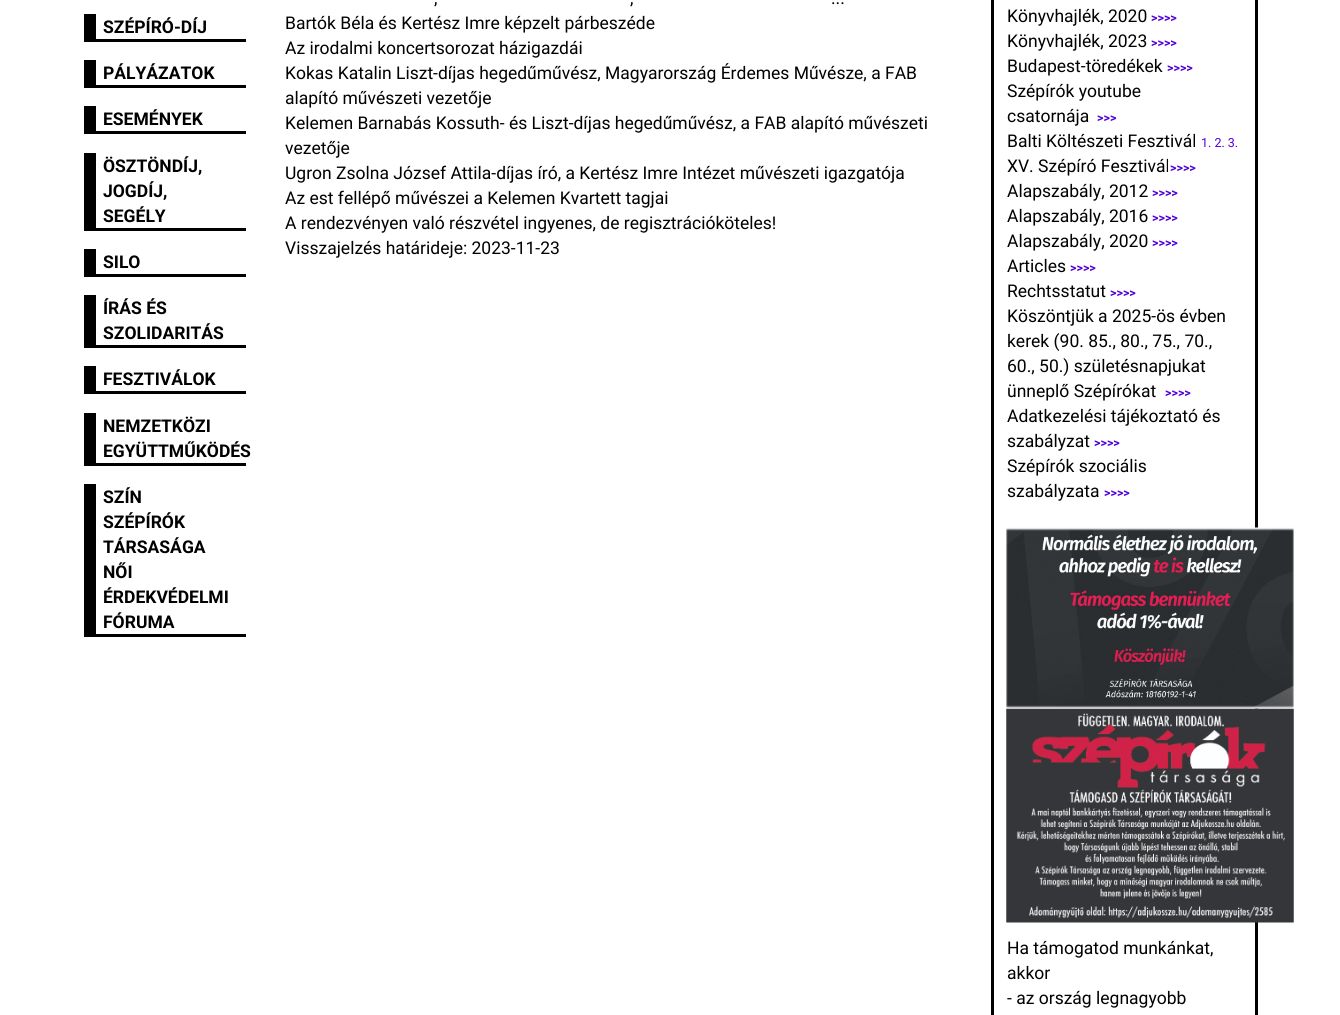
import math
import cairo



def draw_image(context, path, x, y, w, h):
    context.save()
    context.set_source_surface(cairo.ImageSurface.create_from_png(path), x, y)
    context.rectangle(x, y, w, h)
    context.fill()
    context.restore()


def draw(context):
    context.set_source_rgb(1, 1, 1)
    context.paint()
    context.set_source_rgb(0, 0, 0)
    context.rectangle(84, 39, 162, 3)
    context.fill()
    context.rectangle(84, 14, 12, 25)
    context.fill()
    context.rectangle(96, 85, 150, 3)
    context.fill()
    context.rectangle(84, 60, 12, 28)
    context.fill()
    context.rectangle(96, 131, 150, 3)
    context.fill()
    context.rectangle(84, 106, 12, 28)
    context.fill()
    context.rectangle(84, 228, 162, 3)
    context.fill()
    context.rectangle(84, 153, 12, 75)
    context.fill()
    context.rectangle(84, 274, 162, 3)
    context.fill()
    context.rectangle(84, 249, 12, 25)
    context.fill()
    context.rectangle(96, 345, 150, 3)
    context.fill()
    context.rectangle(84, 295, 12, 53)
    context.fill()
    context.rectangle(96, 391, 150, 3)
    context.fill()
    context.rectangle(84, 366, 12, 28)
    context.fill()
    context.rectangle(84, 463, 162, 3)
    context.fill()
    context.rectangle(84, 413, 12, 50)
    context.fill()
    context.rectangle(84, 634, 162, 3)
    context.fill()
    context.rectangle(84, 484, 12, 150)
    context.fill()
    context.rectangle(992.5, -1.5, 264, 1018)
    context.set_line_width(3)
    context.stroke()
    draw_image(context, "images/1.png", 1006, 527, 288, 182)
    draw_image(context, "images/2.png", 1006, 708, 288, 215)
    context.select_font_face("Roboto", cairo.FontSlant.NORMAL, cairo.FontWeight.BOLD)
    context.set_font_size(17.5)
    context.move_to(103, 33)
    context.show_text("SZÉPÍRÓ-DÍJ")
    context.move_to(103, 79)
    context.show_text("PÁLYÁZATOK")
    context.move_to(103, 125)
    context.show_text("ESEMÉNYEK")
    context.move_to(103, 172)
    context.show_text("ÖSZTÖNDÍJ,")
    context.move_to(103, 197)
    context.show_text("JOGDÍJ,")
    context.move_to(103, 222)
    context.show_text("SEGÉLY")
    context.move_to(103, 268)
    context.show_text("SILO")
    context.move_to(103, 314)
    context.show_text("ÍRÁS ÉS")
    context.move_to(103, 339)
    context.show_text("SZOLIDARITÁS")
    context.move_to(103, 385)
    context.show_text("FESZTIVÁLOK")
    context.move_to(103, 432)
    context.show_text("NEMZETKÖZI")
    context.move_to(103, 457)
    context.show_text("EGYÜTTMŰKÖDÉS")
    context.move_to(103, 503)
    context.show_text("SZÍN")
    context.move_to(103, 528)
    context.show_text("SZÉPÍRÓK")
    context.move_to(103, 553)
    context.show_text("TÁRSASÁGA")
    context.move_to(103, 578)
    context.show_text("NŐI")
    context.move_to(103, 603)
    context.show_text("ÉRDEKVÉDELMI")
    context.move_to(103, 628)
    context.show_text("FÓRUMA")
    context.select_font_face("Roboto")
    context.move_to(434, 4)
    context.show_text(",")
    context.move_to(630, 4)
    context.show_text(",")
    context.move_to(831, 4)
    context.show_text("...")
    context.move_to(285, 29)
    context.show_text("Bartók Béla és Kertész Imre képzelt párbeszéde")
    context.move_to(285, 54)
    context.show_text("Az irodalmi koncertsorozat házigazdái")
    context.move_to(285, 79)
    context.show_text("Kokas Katalin Liszt-díjas hegedűművész, Magyarország Érdemes Művésze, a FAB")
    context.move_to(285, 104)
    context.show_text("alapító művészeti vezetője")
    context.move_to(285, 129)
    context.show_text("Kelemen Barnabás Kossuth- és Liszt-díjas hegedűművész, a FAB alapító művészeti")
    context.move_to(285, 154)
    context.show_text("vezetője")
    context.move_to(285, 179)
    context.show_text("Ugron Zsolna József Attila-díjas író, a Kertész Imre Intézet művészeti igazgatója")
    context.move_to(285, 204)
    context.show_text("Az est fellépő művészei a Kelemen Kvartett tagjai")
    context.move_to(285, 229)
    context.show_text("A rendezvényen való részvétel ingyenes, de regisztrációköteles!")
    context.move_to(285, 254)
    context.show_text("Visszajelzés határideje: 2023-11-23")
    context.move_to(1007, 22)
    context.show_text("Könyvhajlék, 2020")
    context.select_font_face("Roboto", cairo.FontSlant.NORMAL, cairo.FontWeight.BOLD)
    context.set_font_size(12.5)
    context.set_source_rgb(79 / 255, 0, 219 / 255)
    context.move_to(1151, 22)
    context.show_text(">>>>")
    context.select_font_face("Roboto")
    context.set_font_size(17.5)
    context.set_source_rgb(0, 0, 0)
    context.move_to(1007, 47)
    context.show_text("Könyvhajlék, 2023")
    context.select_font_face("Roboto", cairo.FontSlant.NORMAL, cairo.FontWeight.BOLD)
    context.set_font_size(12.5)
    context.set_source_rgb(79 / 255, 0, 219 / 255)
    context.move_to(1151, 47)
    context.show_text(">>>>")
    context.select_font_face("Roboto")
    context.set_font_size(17.5)
    context.set_source_rgb(0, 0, 0)
    context.move_to(1007, 72)
    context.show_text("Budapest-töredékek")
    context.select_font_face("Roboto", cairo.FontSlant.NORMAL, cairo.FontWeight.BOLD)
    context.set_font_size(12.5)
    context.set_source_rgb(79 / 255, 0, 219 / 255)
    context.move_to(1167, 72)
    context.show_text(">>>>")
    context.select_font_face("Roboto")
    context.set_font_size(17.5)
    context.set_source_rgb(0, 0, 0)
    context.move_to(1007, 97)
    context.show_text("Szépírók youtube")
    context.move_to(1007, 122)
    context.show_text("csatornája")
    context.select_font_face("Roboto", cairo.FontSlant.NORMAL, cairo.FontWeight.BOLD)
    context.set_font_size(12.5)
    context.set_source_rgb(79 / 255, 0, 219 / 255)
    context.move_to(1097, 122)
    context.show_text(">>>")
    context.select_font_face("Roboto")
    context.set_font_size(17.5)
    context.set_source_rgb(0, 0, 0)
    context.move_to(1007, 147)
    context.show_text("Balti Költészeti Fesztivál")
    context.set_font_size(12.5)
    context.set_source_rgb(79 / 255, 0, 219 / 255)
    context.move_to(1201, 147)
    context.show_text("1. 2. 3.")
    context.set_font_size(17.5)
    context.set_source_rgb(0, 0, 0)
    context.move_to(1007, 172)
    context.show_text("XV. Szépíró Fesztivál")
    context.select_font_face("Roboto", cairo.FontSlant.NORMAL, cairo.FontWeight.BOLD)
    context.set_font_size(12.5)
    context.set_source_rgb(79 / 255, 0, 219 / 255)
    context.move_to(1170, 172)
    context.show_text(">>>>")
    context.select_font_face("Roboto")
    context.set_font_size(17.5)
    context.set_source_rgb(0, 0, 0)
    context.move_to(1007, 197)
    context.show_text("Alapszabály, 2012")
    context.select_font_face("Roboto", cairo.FontSlant.NORMAL, cairo.FontWeight.BOLD)
    context.set_font_size(12.5)
    context.set_source_rgb(79 / 255, 0, 219 / 255)
    context.move_to(1152, 197)
    context.show_text(">>>>")
    context.select_font_face("Roboto")
    context.set_font_size(17.5)
    context.set_source_rgb(0, 0, 0)
    context.move_to(1007, 222)
    context.show_text("Alapszabály, 2016")
    context.select_font_face("Roboto", cairo.FontSlant.NORMAL, cairo.FontWeight.BOLD)
    context.set_font_size(12.5)
    context.set_source_rgb(79 / 255, 0, 219 / 255)
    context.move_to(1152, 222)
    context.show_text(">>>>")
    context.select_font_face("Roboto")
    context.set_font_size(17.5)
    context.set_source_rgb(0, 0, 0)
    context.move_to(1007, 247)
    context.show_text("Alapszabály, 2020")
    context.select_font_face("Roboto", cairo.FontSlant.NORMAL, cairo.FontWeight.BOLD)
    context.set_font_size(12.5)
    context.set_source_rgb(79 / 255, 0, 219 / 255)
    context.move_to(1152, 247)
    context.show_text(">>>>")
    context.select_font_face("Roboto")
    context.set_font_size(17.5)
    context.set_source_rgb(0, 0, 0)
    context.move_to(1007, 272)
    context.show_text("Articles")
    context.select_font_face("Roboto", cairo.FontSlant.NORMAL, cairo.FontWeight.BOLD)
    context.set_font_size(12.5)
    context.set_source_rgb(79 / 255, 0, 219 / 255)
    context.move_to(1070, 272)
    context.show_text(">>>>")
    context.select_font_face("Roboto")
    context.set_font_size(17.5)
    context.set_source_rgb(0, 0, 0)
    context.move_to(1007, 297)
    context.show_text("Rechtsstatut")
    context.select_font_face("Roboto", cairo.FontSlant.NORMAL, cairo.FontWeight.BOLD)
    context.set_font_size(12.5)
    context.set_source_rgb(79 / 255, 0, 219 / 255)
    context.move_to(1110, 297)
    context.show_text(">>>>")
    context.select_font_face("Roboto")
    context.set_font_size(17.5)
    context.set_source_rgb(0, 0, 0)
    context.move_to(1007, 322)
    context.show_text("Köszöntjük a 2025-ös évben")
    context.move_to(1007, 347)
    context.show_text("kerek (90. 85., 80., 75., 70.,")
    context.move_to(1007, 372)
    context.show_text("60., 50.) születésnapjukat")
    context.move_to(1007, 397)
    context.show_text("ünneplő Szépírókat")
    context.select_font_face("Roboto", cairo.FontSlant.NORMAL, cairo.FontWeight.BOLD)
    context.set_font_size(12.5)
    context.set_source_rgb(79 / 255, 0, 219 / 255)
    context.move_to(1165, 397)
    context.show_text(">>>>")
    context.select_font_face("Roboto")
    context.set_font_size(17.5)
    context.set_source_rgb(0, 0, 0)
    context.move_to(1007, 422)
    context.show_text("Adatkezelési tájékoztató és")
    context.move_to(1007, 447)
    context.show_text("szabályzat")
    context.select_font_face("Roboto", cairo.FontSlant.NORMAL, cairo.FontWeight.BOLD)
    context.set_font_size(12.5)
    context.set_source_rgb(79 / 255, 0, 219 / 255)
    context.move_to(1094, 447)
    context.show_text(">>>>")
    context.select_font_face("Roboto")
    context.set_font_size(17.5)
    context.set_source_rgb(0, 0, 0)
    context.move_to(1007, 472)
    context.show_text("Szépírók szociális")
    context.move_to(1007, 497)
    context.show_text("szabályzata")
    context.select_font_face("Roboto", cairo.FontSlant.NORMAL, cairo.FontWeight.BOLD)
    context.set_font_size(12.5)
    context.set_source_rgb(79 / 255, 0, 219 / 255)
    context.move_to(1104, 497)
    context.show_text(">>>>")
    context.select_font_face("Roboto")
    context.set_font_size(17.5)
    context.set_source_rgb(0, 0, 0)
    context.move_to(1007, 954)
    context.show_text("Ha támogatod munkánkat,")
    context.move_to(1007, 979)
    context.show_text("akkor")
    context.move_to(1007, 1004)
    context.show_text("- az ország legnagyobb")


surface = cairo.ImageSurface(cairo.Format.RGB24, 1340, 1015)
context = cairo.Context(surface)
options = cairo.FontOptions()
options.set_hint_metrics(cairo.HintMetrics.OFF)
options.set_hint_style(cairo.HintStyle.NONE)
context.set_font_options(options)
context.set_miter_limit(4)
draw(context)
surface.write_to_png("out.png")
